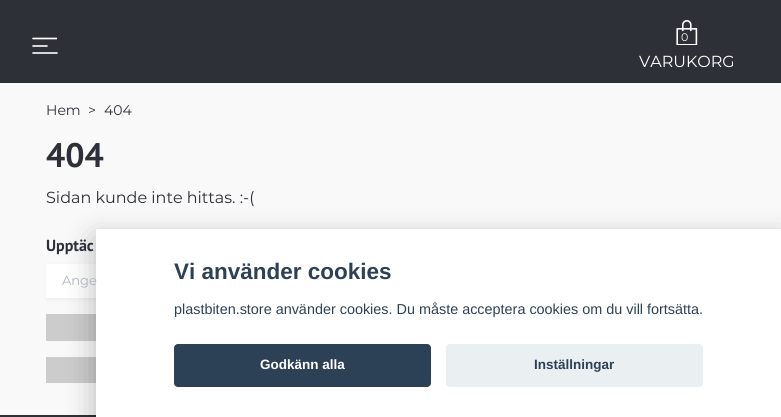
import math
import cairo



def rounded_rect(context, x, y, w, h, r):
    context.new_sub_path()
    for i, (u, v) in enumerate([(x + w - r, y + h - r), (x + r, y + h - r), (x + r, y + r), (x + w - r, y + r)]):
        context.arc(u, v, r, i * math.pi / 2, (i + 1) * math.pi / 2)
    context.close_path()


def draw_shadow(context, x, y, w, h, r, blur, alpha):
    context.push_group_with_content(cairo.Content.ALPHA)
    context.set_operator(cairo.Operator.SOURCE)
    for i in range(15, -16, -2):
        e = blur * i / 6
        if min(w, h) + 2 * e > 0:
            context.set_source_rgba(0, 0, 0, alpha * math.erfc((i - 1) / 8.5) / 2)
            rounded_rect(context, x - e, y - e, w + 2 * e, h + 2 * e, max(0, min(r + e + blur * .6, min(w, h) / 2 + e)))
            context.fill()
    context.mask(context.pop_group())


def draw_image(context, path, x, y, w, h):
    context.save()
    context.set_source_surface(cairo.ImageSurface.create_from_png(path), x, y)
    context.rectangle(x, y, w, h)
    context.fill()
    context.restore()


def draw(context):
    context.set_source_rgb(249 / 255, 249 / 255, 250 / 255)
    context.paint()
    context.set_source_rgb(46 / 255, 48 / 255, 56 / 255)
    context.rectangle(0, 0, 781, 83)
    context.fill()
    context.save()
    context.rectangle(32, 33, 25, 25)
    context.clip()
    context.new_path()
    context.move_to(33, 38.5)
    context.line_to(57, 38.5)
    context.move_to(33, 46)
    context.line_to(47, 46)
    context.set_source_rgb(1, 1, 1)
    context.set_line_width(1.6)
    context.set_line_cap(cairo.LineCap.ROUND)
    context.set_line_join(cairo.LineJoin.ROUND)
    context.stroke()
    context.restore()
    context.new_path()
    context.move_to(33, 53)
    context.line_to(57, 53)
    context.set_source_rgb(1, 1, 1)
    context.set_line_width(1.6)
    context.set_line_cap(cairo.LineCap.ROUND)
    context.set_line_join(cairo.LineJoin.ROUND)
    context.stroke()
    draw_image(context, "images/1.png", 676, 20, 22, 25)
    context.set_source_rgb(0, 0, 0)
    draw_shadow(context, 47, 266, 690, 34, 0, 2, 0.05)
    context.set_source_rgb(1, 1, 1)
    context.rectangle(46, 264, 50, 34)
    context.fill()
    context.set_source_rgb(204 / 255, 204 / 255, 204 / 255)
    context.rectangle(46, 314, 50, 27)
    context.fill()
    context.rectangle(46, 357, 50, 26)
    context.fill()
    context.set_source_rgb(46 / 255, 48 / 255, 56 / 255)
    context.rectangle(0, 415, 96, 2)
    context.fill()
    context.set_source_rgb(2 / 255, 2 / 255, 3 / 255)
    draw_shadow(context, 96, 239, 685, 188, 0, 15, 0.28)
    context.set_source_rgb(1, 1, 1)
    context.rectangle(96, 229, 685, 188)
    context.fill()
    context.set_source_rgb(45 / 255, 65 / 255, 86 / 255)
    rounded_rect(context, 174, 344, 257, 43, 4)
    context.fill()
    context.set_source_rgb(234 / 255, 239 / 255, 242 / 255)
    rounded_rect(context, 446, 344, 257, 43, 4)
    context.fill()
    context.select_font_face("Montserrat")
    context.set_font_size(11)
    context.set_source_rgb(1, 1, 1)
    context.move_to(681, 41)
    context.show_text("0")
    context.set_font_size(16)
    context.move_to(639, 67)
    context.show_text("VARUKORG")
    context.set_font_size(14)
    context.set_source_rgb(46 / 255, 48 / 255, 56 / 255)
    context.move_to(46, 115)
    context.show_text("Hem")
    context.move_to(88, 115)
    context.show_text(">")
    context.move_to(104, 115)
    context.show_text("404")
    context.select_font_face("PT Sans", cairo.FontSlant.NORMAL, cairo.FontWeight.BOLD)
    context.set_font_size(34)
    context.move_to(46, 167)
    context.show_text("404")
    context.select_font_face("Montserrat")
    context.set_font_size(16)
    context.move_to(46, 203)
    context.show_text("Sidan kunde inte hittas. :-(")
    context.select_font_face("PT Sans", cairo.FontSlant.NORMAL, cairo.FontWeight.BOLD)
    context.move_to(46, 251)
    context.show_text("Upptäc")
    context.select_font_face("Montserrat")
    context.set_font_size(13)
    context.set_source_rgb(173 / 255, 181 / 255, 189 / 255)
    context.move_to(62, 285)
    context.show_text("Ange")
    context.select_font_face("Liberation Sans", cairo.FontSlant.NORMAL, cairo.FontWeight.BOLD)
    context.set_font_size(22.5)
    context.set_source_rgb(45 / 255, 65 / 255, 86 / 255)
    context.move_to(174, 279)
    context.show_text("Vi använder cookies")
    context.select_font_face("Liberation Sans")
    context.set_font_size(14.4)
    context.move_to(174, 314)
    context.show_text("plastbiten.store använder cookies. Du måste acceptera cookies om du vill fortsätta.")
    context.select_font_face("Liberation Sans", cairo.FontSlant.NORMAL, cairo.FontWeight.BOLD)
    context.set_font_size(13.5)
    context.set_source_rgb(1, 1, 1)
    context.move_to(260, 369)
    context.show_text("Godkänn alla")
    context.set_source_rgb(45 / 255, 65 / 255, 86 / 255)
    context.move_to(534, 369)
    context.show_text("Inställningar")


surface = cairo.ImageSurface(cairo.Format.RGB24, 781, 417)
context = cairo.Context(surface)
options = cairo.FontOptions()
options.set_hint_metrics(cairo.HintMetrics.OFF)
options.set_hint_style(cairo.HintStyle.NONE)
context.set_font_options(options)
context.set_miter_limit(4)
draw(context)
surface.write_to_png("out.png")
